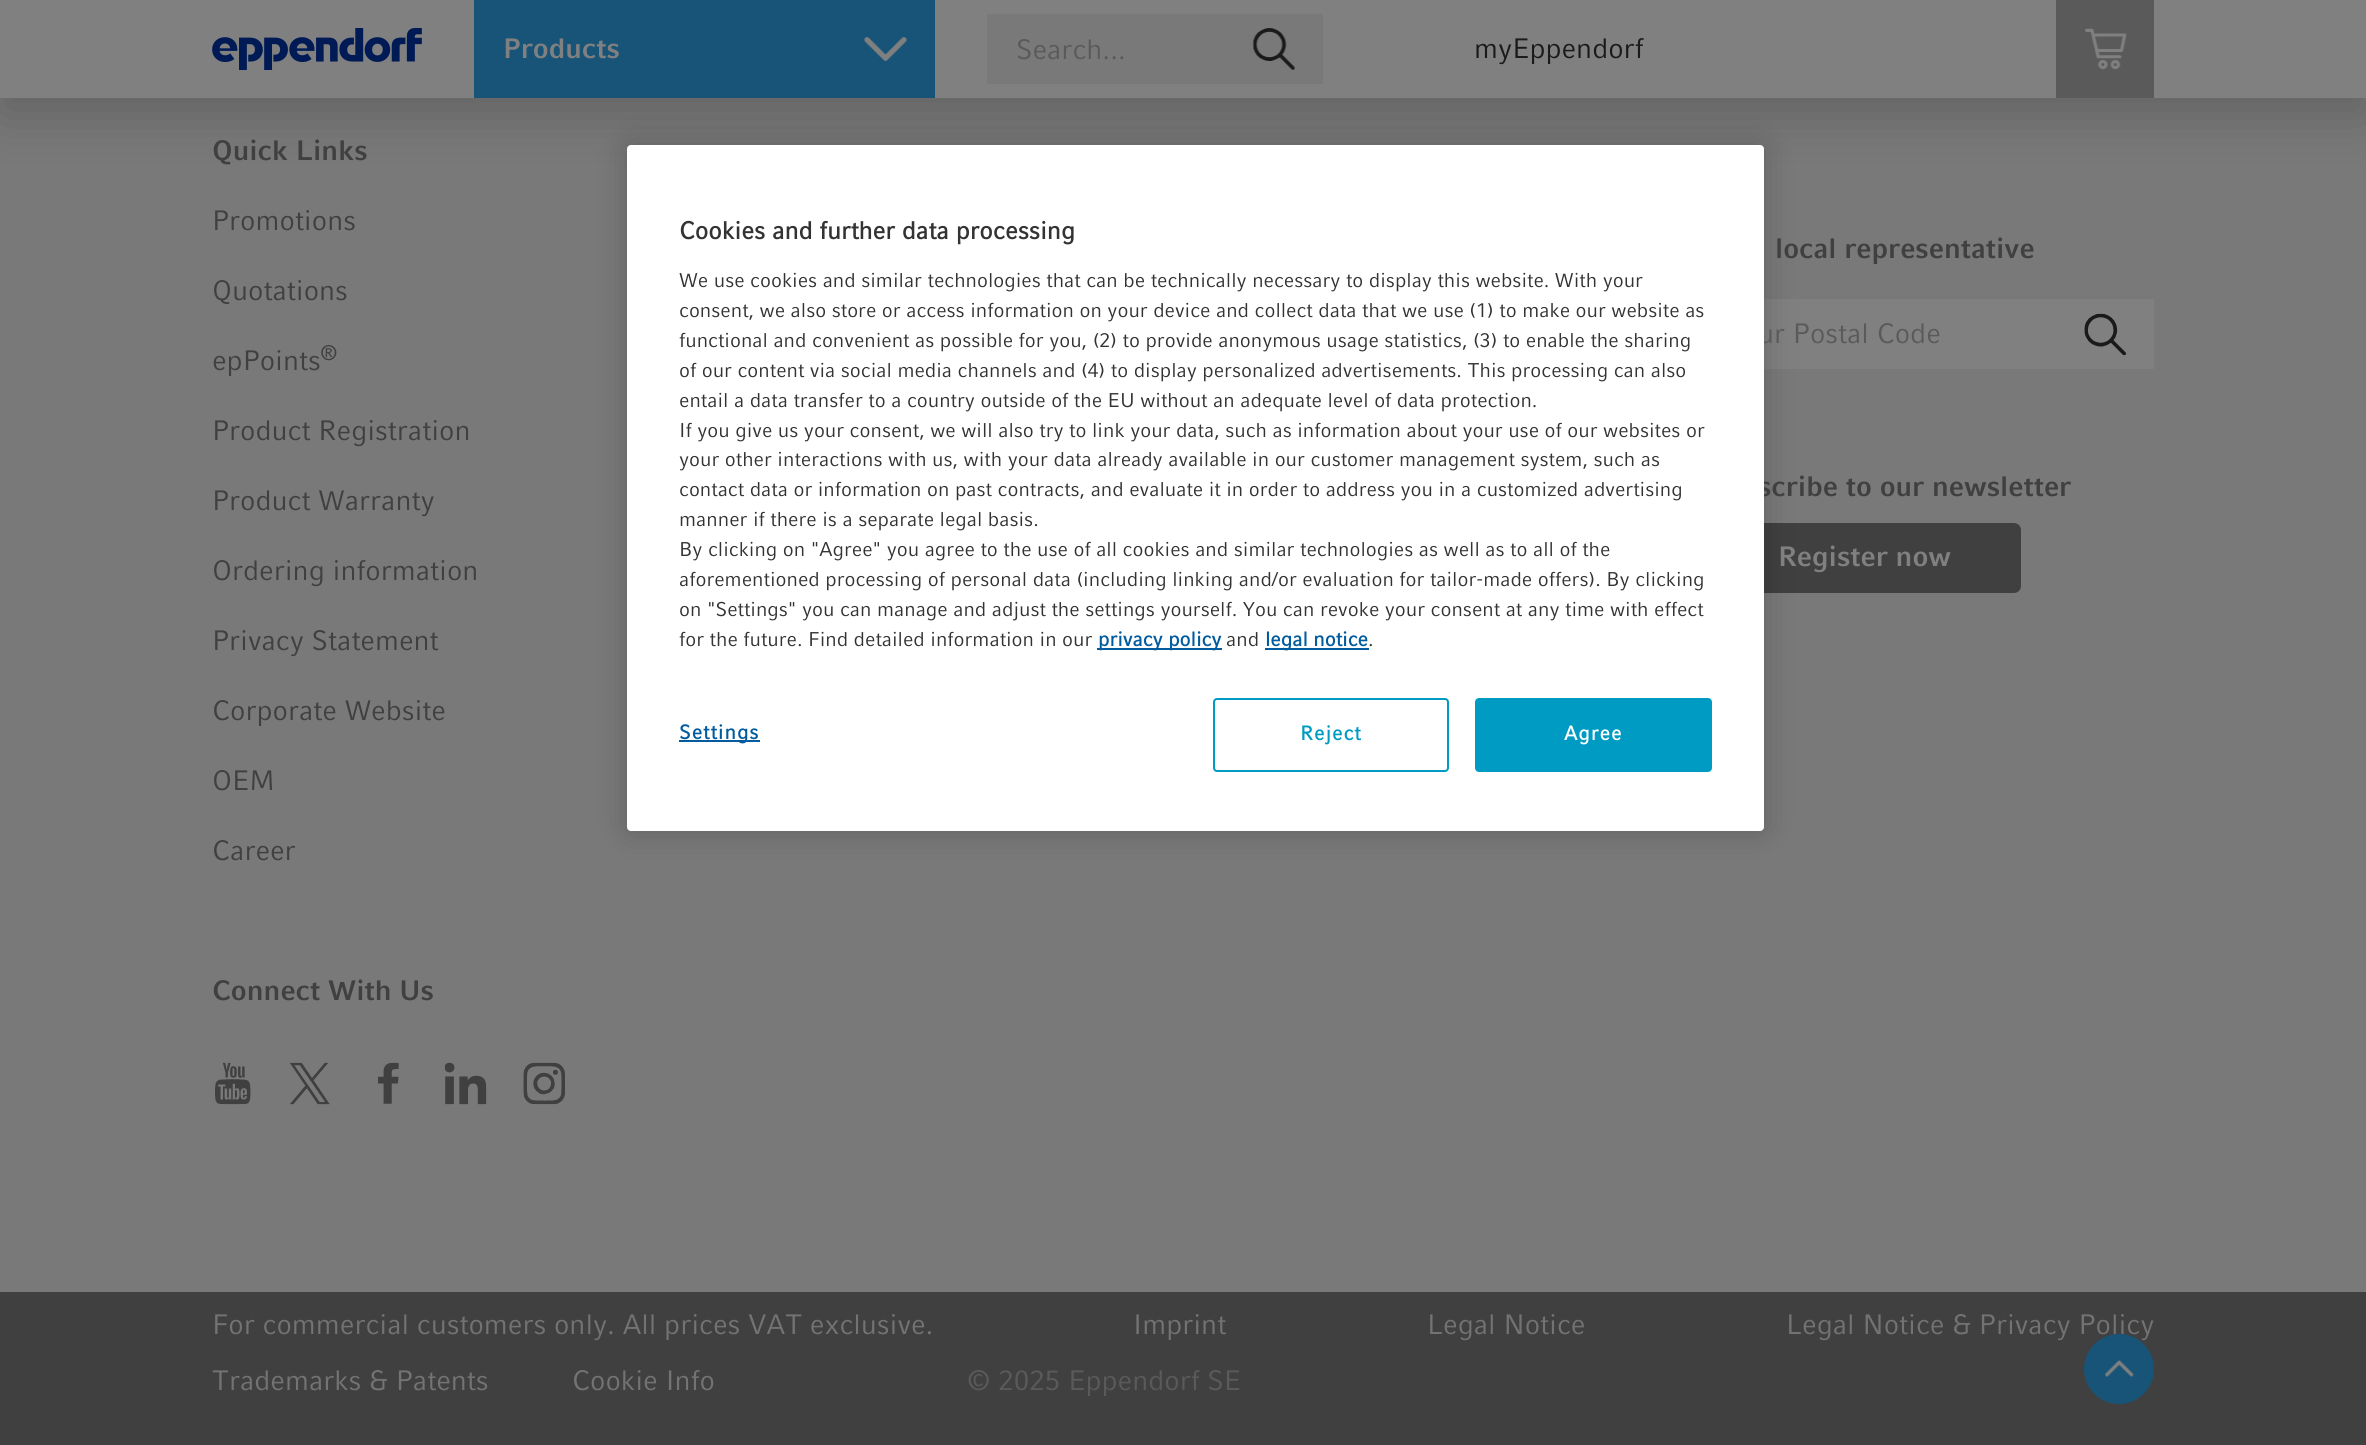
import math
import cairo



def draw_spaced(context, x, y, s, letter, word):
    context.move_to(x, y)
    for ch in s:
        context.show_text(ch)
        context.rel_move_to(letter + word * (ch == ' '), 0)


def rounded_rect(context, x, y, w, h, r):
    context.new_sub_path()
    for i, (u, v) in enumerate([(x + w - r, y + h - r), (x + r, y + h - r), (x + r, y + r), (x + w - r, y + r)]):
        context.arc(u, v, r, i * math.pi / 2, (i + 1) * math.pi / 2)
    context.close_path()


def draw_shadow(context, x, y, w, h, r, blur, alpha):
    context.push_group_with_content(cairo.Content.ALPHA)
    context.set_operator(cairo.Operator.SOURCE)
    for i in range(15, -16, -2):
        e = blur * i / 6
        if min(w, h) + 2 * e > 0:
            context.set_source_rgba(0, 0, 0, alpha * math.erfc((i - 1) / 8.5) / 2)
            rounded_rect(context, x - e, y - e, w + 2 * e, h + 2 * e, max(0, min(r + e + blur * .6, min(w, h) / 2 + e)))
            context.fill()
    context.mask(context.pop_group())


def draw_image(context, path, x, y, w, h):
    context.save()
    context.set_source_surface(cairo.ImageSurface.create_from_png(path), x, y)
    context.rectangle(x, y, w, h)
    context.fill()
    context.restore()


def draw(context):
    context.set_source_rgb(121 / 255, 121 / 255, 121 / 255)
    context.paint()
    context.set_source_rgb(0, 0, 0)
    draw_shadow(context, 0, 18, 2366, 98, 0, 26, 0.18)
    context.set_source_rgb(128 / 255, 128 / 255, 128 / 255)
    context.rectangle(0, 0, 2366, 98)
    context.fill()
    draw_image(context, "images/1.png", 212, 28, 210, 42)
    context.set_source_rgb(23 / 255, 84 / 255, 120 / 255)
    context.rectangle(474, 0, 461, 98)
    context.fill()
    draw_image(context, "images/2.png", 864, 37, 43, 24)
    context.set_source_rgb(121 / 255, 121 / 255, 121 / 255)
    context.rectangle(987, 14, 336, 70)
    context.fill()
    draw_image(context, "images/3.png", 1252, 28, 44, 42)
    context.set_source_rgb(90 / 255, 90 / 255, 90 / 255)
    context.rectangle(2056, 0, 98, 98)
    context.fill()
    draw_image(context, "images/4.png", 2084, 28, 43, 42)
    draw_image(context, "images/5.png", 215, 1062, 36, 43)
    draw_image(context, "images/6.png", 290, 1062, 40, 43)
    draw_image(context, "images/7.png", 378, 1062, 21, 42)
    draw_image(context, "images/8.png", 444, 1062, 43, 43)
    draw_image(context, "images/9.png", 523, 1062, 42, 43)
    context.set_source_rgb(128 / 255, 128 / 255, 128 / 255)
    context.rectangle(1764, 299, 390, 70)
    context.fill()
    draw_image(context, "images/10.png", 2084, 313, 42, 43)
    context.set_source_rgb(64 / 255, 64 / 255, 64 / 255)
    rounded_rect(context, 1708, 523, 313, 70, 7)
    context.fill()
    context.rectangle(0, 1292, 2366, 153)
    context.fill()
    context.set_source_rgb(0, 0, 0)
    draw_shadow(context, 627, 145, 1137, 686, 4, 16, 0.2)
    context.select_font_face("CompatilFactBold", cairo.FontSlant.NORMAL, cairo.FontWeight.BOLD)
    context.set_font_size(28)
    context.set_source_rgb(128 / 255, 128 / 255, 128 / 255)
    context.move_to(503, 58)
    context.show_text("Products")
    context.select_font_face("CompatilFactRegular")
    context.set_source_rgb(90 / 255, 90 / 255, 90 / 255)
    context.move_to(1016, 59)
    context.show_text("Search...")
    context.set_source_rgb(26 / 255, 26 / 255, 26 / 255)
    context.move_to(1474, 58)
    context.show_text("myEppendorf")
    context.select_font_face("CompatilFactBold", cairo.FontSlant.NORMAL, cairo.FontWeight.BOLD)
    context.set_source_rgb(64 / 255, 64 / 255, 64 / 255)
    context.move_to(212, 160)
    context.show_text("Quick Links")
    context.select_font_face("CompatilFactRegular")
    context.move_to(212, 230)
    context.show_text("Promotions")
    context.move_to(212, 300)
    context.show_text("Quotations")
    context.move_to(212, 370)
    context.show_text("epPoints")
    context.set_font_size(21)
    context.move_to(320, 360)
    context.show_text("®")
    context.set_font_size(28)
    context.move_to(212, 440)
    context.show_text("Product Registration")
    context.move_to(212, 510)
    context.show_text("Product Warranty")
    context.move_to(212, 580)
    context.show_text("Ordering information")
    context.move_to(212, 650)
    context.show_text("Privacy Statement")
    context.move_to(212, 720)
    context.show_text("Corporate Website")
    context.move_to(212, 790)
    context.show_text("OEM")
    context.move_to(212, 860)
    context.show_text("Career")
    context.select_font_face("CompatilFactBold", cairo.FontSlant.NORMAL, cairo.FontWeight.BOLD)
    context.move_to(212, 1000)
    context.show_text("Connect With Us")
    context.move_to(1775, 258)
    context.show_text("local representative")
    context.select_font_face("CompatilFactRegular")
    context.set_source_rgb(90 / 255, 90 / 255, 90 / 255)
    context.move_to(1758, 343)
    context.show_text("ur Postal Code")
    context.select_font_face("CompatilFactBold", cairo.FontSlant.NORMAL, cairo.FontWeight.BOLD)
    context.set_source_rgb(64 / 255, 64 / 255, 64 / 255)
    context.move_to(1758, 496)
    context.show_text("scribe to our newsletter")
    context.set_source_rgb(128 / 255, 128 / 255, 128 / 255)
    context.move_to(1778, 566)
    context.show_text("Register now")
    context.select_font_face("CompatilFactRegular")
    context.set_source_rgb(115 / 255, 115 / 255, 115 / 255)
    context.move_to(212, 1334)
    context.show_text("For commercial customers only. All prices VAT exclusive.")
    context.move_to(1133, 1334)
    context.show_text("Imprint")
    context.move_to(1427, 1334)
    context.show_text("Legal Notice")
    context.move_to(1786, 1334)
    context.show_text("Legal Notice & Privacy Policy")
    context.move_to(212, 1390)
    context.show_text("Trademarks & Patents")
    context.move_to(572, 1390)
    context.show_text("Cookie Info")
    context.set_source_rgb(90 / 255, 90 / 255, 90 / 255)
    context.move_to(967, 1390)
    context.show_text("© 2025 Eppendorf SE")
    context.set_source_rgb(23 / 255, 84 / 255, 120 / 255)
    context.new_path()
    context.arc(2119, 1369, 35, 0, 2 * math.pi)
    context.fill()
    draw_image(context, "images/11.png", 2105, 1360, 29, 17)
    context.set_source_rgb(1, 1, 1)
    rounded_rect(context, 627, 145, 1137, 686, 4)
    context.fill()
    context.select_font_face("CompatilFactRegular", cairo.FontSlant.NORMAL, cairo.FontWeight.BOLD)
    context.set_font_size(24.5)
    context.set_source_rgb(51 / 255, 51 / 255, 51 / 255)
    context.move_to(679, 239)
    context.show_text("Cookies and further data processing")
    context.select_font_face("CompatilFactRegular")
    context.set_font_size(19.92)
    context.move_to(679, 287)
    context.show_text("We use cookies and similar technologies that can be technically necessary to display this website. With your")
    context.move_to(679, 317)
    context.show_text("consent, we also store or access information on your device and collect data that we use (1) to make our website as")
    context.move_to(679, 347)
    context.show_text("functional and convenient as possible for you, (2) to provide anonymous usage statistics, (3) to enable the sharing")
    context.move_to(679, 377)
    context.show_text("of our content via social media channels and (4) to display personalized advertisements. This processing can also")
    context.move_to(679, 407)
    context.show_text("entail a data transfer to a country outside of the EU without an adequate level of data protection.")
    context.move_to(679, 437)
    context.show_text("If you give us your consent, we will also try to link your data, such as information about your use of our websites or")
    context.move_to(679, 466)
    context.show_text("your other interactions with us, with your data already available in our customer management system, such as")
    context.move_to(679, 496)
    context.show_text("contact data or information on past contracts, and evaluate it in order to address you in a customized advertising")
    context.move_to(679, 526)
    context.show_text("manner if there is a separate legal basis.")
    context.move_to(679, 556)
    context.show_text("By clicking on \"Agree\" you agree to the use of all cookies and similar technologies as well as to all of the")
    context.move_to(679, 586)
    context.show_text("aforementioned processing of personal data (including linking and/or evaluation for tailor-made offers). By clicking")
    context.move_to(679, 616)
    context.show_text("on \"Settings\" you can manage and adjust the settings yourself. You can revoke your consent at any time with effect")
    context.move_to(679, 646)
    context.show_text("for the future. Find detailed information in our")
    context.set_source_rgb(0, 91 / 255, 159 / 255)
    context.rectangle(1097, 648, 125, 2)
    context.fill()
    context.select_font_face("CompatilFactRegular", cairo.FontSlant.NORMAL, cairo.FontWeight.BOLD)
    context.move_to(1098, 646)
    context.show_text("privacy policy")
    context.select_font_face("CompatilFactRegular")
    context.set_source_rgb(51 / 255, 51 / 255, 51 / 255)
    context.move_to(1226, 646)
    context.show_text("and")
    context.set_source_rgb(0, 91 / 255, 159 / 255)
    context.rectangle(1265, 648, 104, 2)
    context.fill()
    context.select_font_face("CompatilFactRegular", cairo.FontSlant.NORMAL, cairo.FontWeight.BOLD)
    context.move_to(1265, 646)
    context.show_text("legal notice")
    context.select_font_face("CompatilFactRegular")
    context.set_source_rgb(51 / 255, 51 / 255, 51 / 255)
    context.move_to(1368, 646)
    context.show_text(".")
    context.set_source_rgb(0, 91 / 255, 159 / 255)
    context.rectangle(679, 740, 81, 2)
    context.fill()
    context.select_font_face("CompatilFactRegular", cairo.FontSlant.NORMAL, cairo.FontWeight.BOLD)
    draw_spaced(context, 679, 739, "Settings", 1, 0)
    rounded_rect(context, 1214, 699, 234, 72, 3)
    context.set_source_rgb(0, 155 / 255, 194 / 255)
    context.stroke()
    draw_spaced(context, 1300, 740, "Reject", 1, 0)
    rounded_rect(context, 1476, 699, 235, 72, 3)
    context.fill_preserve()
    context.stroke()
    context.set_source_rgb(1, 1, 1)
    draw_spaced(context, 1564, 740, "Agree", 1, 0)


surface = cairo.ImageSurface(cairo.Format.RGB24, 2366, 1445)
context = cairo.Context(surface)
options = cairo.FontOptions()
options.set_hint_metrics(cairo.HintMetrics.OFF)
options.set_hint_style(cairo.HintStyle.NONE)
context.set_font_options(options)
context.set_miter_limit(4)
draw(context)
surface.write_to_png("out.png")
